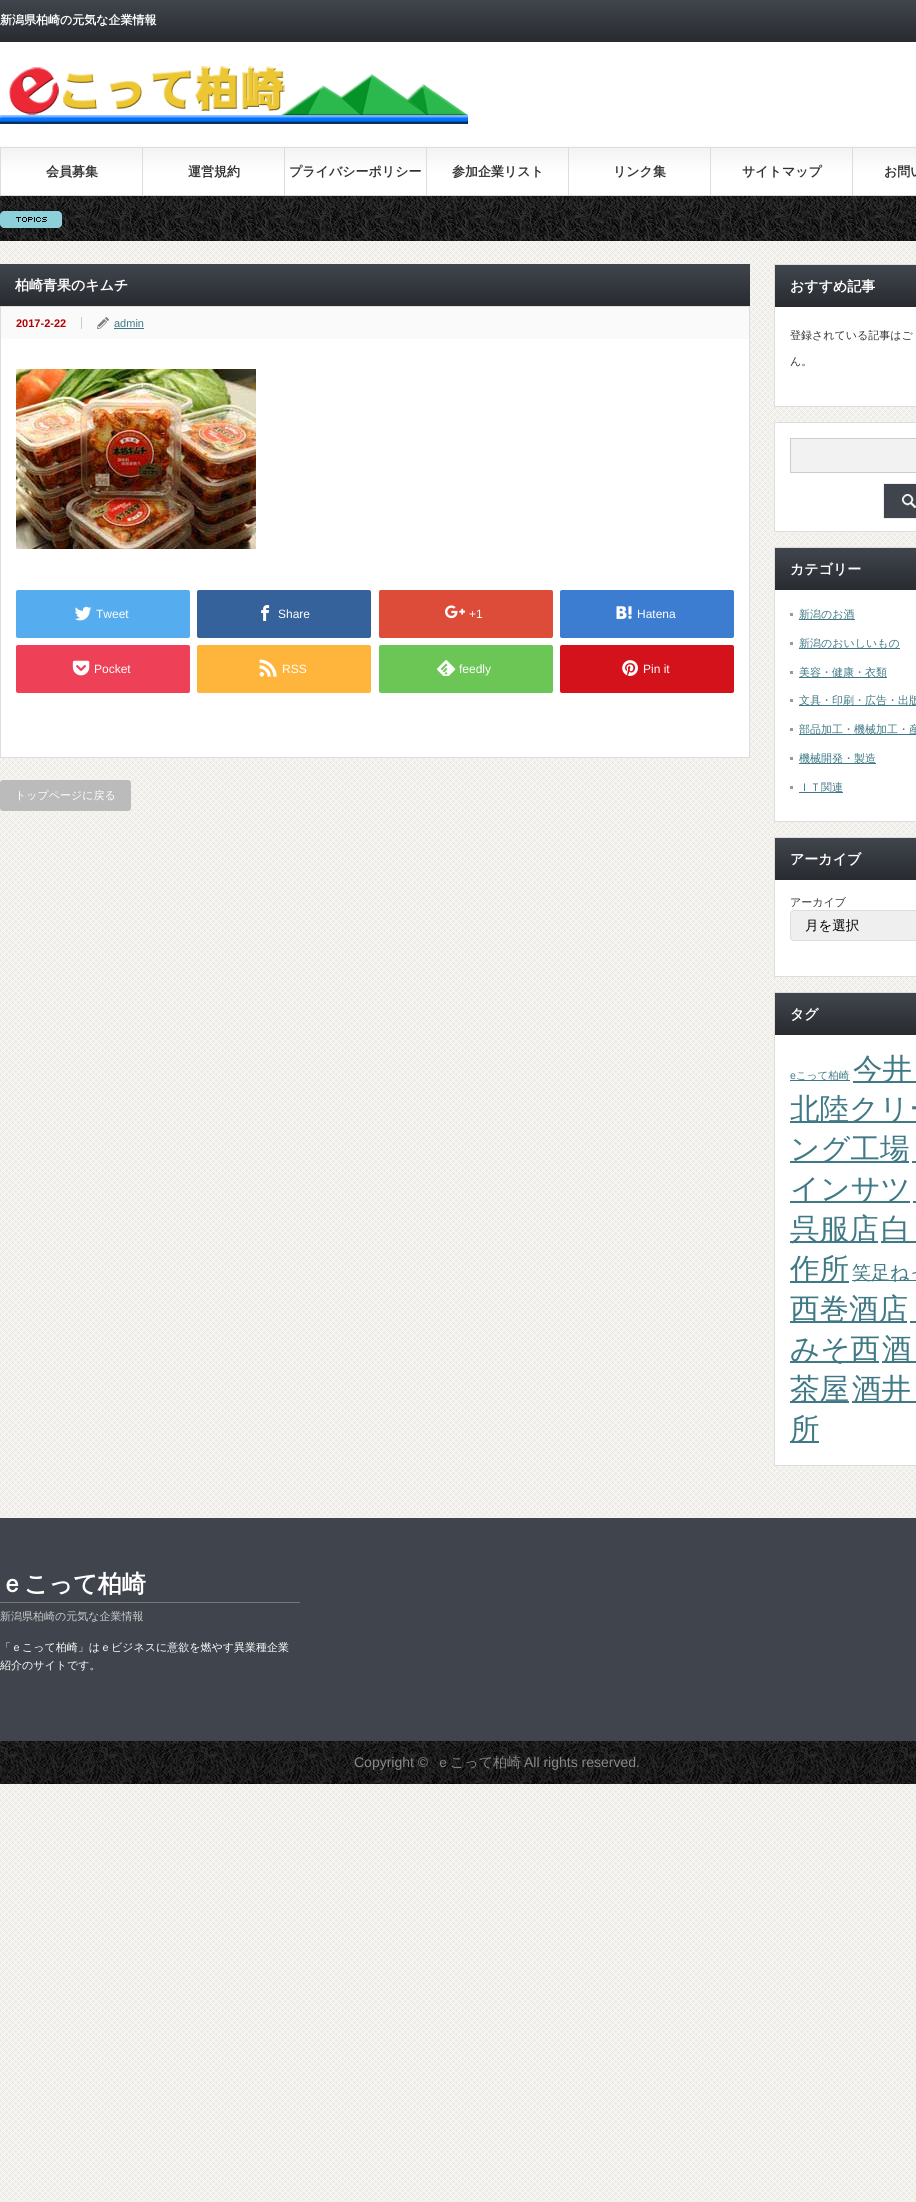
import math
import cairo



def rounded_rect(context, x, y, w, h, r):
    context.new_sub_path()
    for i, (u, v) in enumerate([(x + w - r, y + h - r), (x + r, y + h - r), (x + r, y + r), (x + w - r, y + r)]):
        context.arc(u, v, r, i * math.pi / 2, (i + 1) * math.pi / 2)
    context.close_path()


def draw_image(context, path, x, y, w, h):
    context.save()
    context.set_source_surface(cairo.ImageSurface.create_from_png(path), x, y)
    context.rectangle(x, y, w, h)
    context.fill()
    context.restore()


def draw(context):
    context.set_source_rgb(1, 1, 1)
    context.paint()
    draw_image(context, "images/1.png", 0, 241, 916, 1961)
    draw_image(context, "images/2.png", 0, 0, 916, 241)
    draw_image(context, "images/3.png", 0, 66, 468, 58)
    context.set_source_rgb(221 / 255, 221 / 255, 221 / 255)
    context.rectangle(0, 148, 1, 47)
    context.fill()
    context.rectangle(142, 148, 1, 47)
    context.fill()
    context.rectangle(284, 148, 1, 47)
    context.fill()
    context.rectangle(426, 148, 1, 47)
    context.fill()
    context.rectangle(568, 148, 1, 47)
    context.fill()
    context.rectangle(710, 148, 1, 47)
    context.fill()
    context.rectangle(852, 148, 1, 47)
    context.fill()
    draw_image(context, "images/4.png", 0, 211, 62, 17)
    draw_image(context, "images/5.png", 0, 264, 750, 42)
    context.set_source_rgb(1, 1, 1)
    context.rectangle(1, 339, 748, 418)
    context.fill()
    context.rectangle(0.5, 306.5, 749, 451)
    context.set_source_rgb(221 / 255, 221 / 255, 221 / 255)
    context.set_line_width(1)
    context.stroke()
    context.set_source_rgb(250 / 255, 250 / 255, 250 / 255)
    context.rectangle(1, 307, 748, 32)
    context.fill()
    context.set_source_rgb(204 / 255, 204 / 255, 204 / 255)
    context.rectangle(81, 317, 1, 12)
    context.fill()
    draw_image(context, "images/6.png", 97, 317, 12, 12)
    context.set_source_rgb(63 / 255, 121 / 255, 133 / 255)
    context.rectangle(114, 328, 30, 1)
    context.fill()
    draw_image(context, "images/7.png", 16, 369, 240, 180)
    context.set_source_rgb(85 / 255, 172 / 255, 238 / 255)
    rounded_rect(context, 16, 590, 174, 48, 2)
    context.fill()
    draw_image(context, "images/8.png", 75, 606, 17, 15)
    context.set_source_rgb(53 / 255, 98 / 255, 154 / 255)
    rounded_rect(context, 197, 590, 174, 48, 2)
    context.fill()
    draw_image(context, "images/9.png", 261, 605, 9, 16)
    context.set_source_rgb(221 / 255, 75 / 255, 57 / 255)
    rounded_rect(context, 379, 590, 174, 48, 2)
    context.fill()
    draw_image(context, "images/10.png", 445, 605, 20, 14)
    context.set_source_rgb(60 / 255, 125 / 255, 209 / 255)
    rounded_rect(context, 560, 590, 174, 48, 2)
    context.fill()
    draw_image(context, "images/11.png", 616, 606, 16, 13)
    context.set_source_rgb(238 / 255, 64 / 255, 86 / 255)
    rounded_rect(context, 16, 645, 174, 48, 2)
    context.fill()
    draw_image(context, "images/12.png", 72, 660, 18, 16)
    context.set_source_rgb(1, 181 / 255, 60 / 255)
    rounded_rect(context, 197, 645, 174, 48, 2)
    context.fill()
    draw_image(context, "images/13.png", 259, 659, 18, 18)
    context.set_source_rgb(108 / 255, 198 / 255, 85 / 255)
    rounded_rect(context, 379, 645, 174, 48, 2)
    context.fill()
    draw_image(context, "images/14.png", 437, 660, 19, 16)
    context.set_source_rgb(212 / 255, 18 / 255, 28 / 255)
    rounded_rect(context, 560, 645, 174, 48, 2)
    context.fill()
    draw_image(context, "images/15.png", 622, 660, 16, 16)
    context.set_source_rgb(187 / 255, 187 / 255, 187 / 255)
    rounded_rect(context, 0, 780, 131, 31, 3)
    context.fill()
    context.set_source_rgb(1, 1, 1)
    context.rectangle(775, 307, 141, 99)
    context.fill()
    context.rectangle(774.5, 264.5, 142, 142)
    context.set_source_rgb(221 / 255, 221 / 255, 221 / 255)
    context.stroke()
    draw_image(context, "images/16.png", 775, 265, 141, 42)
    context.set_source_rgb(1, 1, 1)
    context.rectangle(774.5, 422.5, 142, 109)
    context.fill_preserve()
    context.set_source_rgb(221 / 255, 221 / 255, 221 / 255)
    context.stroke()
    context.set_source_rgb(242 / 255, 242 / 255, 242 / 255)
    context.rectangle(790.5, 438.5, 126, 34)
    context.fill_preserve()
    context.set_source_rgb(204 / 255, 204 / 255, 204 / 255)
    context.stroke()
    draw_image(context, "images/17.png", 883, 483, 33, 36)
    context.set_source_rgb(1, 1, 1)
    context.rectangle(775, 590, 141, 231)
    context.fill()
    context.rectangle(774.5, 547.5, 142, 274)
    context.set_source_rgb(221 / 255, 221 / 255, 221 / 255)
    context.stroke()
    draw_image(context, "images/16.png", 775, 548, 141, 42)
    context.set_source_rgb(153 / 255, 153 / 255, 153 / 255)
    context.rectangle(790, 613, 3, 3)
    context.fill()
    context.set_source_rgb(63 / 255, 121 / 255, 133 / 255)
    context.rectangle(799, 619, 56, 1)
    context.fill()
    context.set_source_rgb(153 / 255, 153 / 255, 153 / 255)
    context.rectangle(790, 642, 3, 3)
    context.fill()
    context.set_source_rgb(63 / 255, 121 / 255, 133 / 255)
    context.rectangle(799, 648, 101, 1)
    context.fill()
    context.set_source_rgb(153 / 255, 153 / 255, 153 / 255)
    context.rectangle(790, 671, 3, 3)
    context.fill()
    context.set_source_rgb(63 / 255, 121 / 255, 133 / 255)
    context.rectangle(799, 677, 88, 1)
    context.fill()
    context.set_source_rgb(153 / 255, 153 / 255, 153 / 255)
    context.rectangle(790, 699, 3, 3)
    context.fill()
    context.set_source_rgb(63 / 255, 121 / 255, 133 / 255)
    context.rectangle(799, 705, 117, 1)
    context.fill()
    context.set_source_rgb(153 / 255, 153 / 255, 153 / 255)
    context.rectangle(790, 728, 3, 3)
    context.fill()
    context.set_source_rgb(63 / 255, 121 / 255, 133 / 255)
    context.rectangle(799, 734, 117, 1)
    context.fill()
    context.set_source_rgb(153 / 255, 153 / 255, 153 / 255)
    context.rectangle(790, 757, 3, 3)
    context.fill()
    context.set_source_rgb(63 / 255, 121 / 255, 133 / 255)
    context.rectangle(799, 763, 77, 1)
    context.fill()
    context.set_source_rgb(153 / 255, 153 / 255, 153 / 255)
    context.rectangle(790, 786, 3, 3)
    context.fill()
    context.set_source_rgb(63 / 255, 121 / 255, 133 / 255)
    context.rectangle(799, 792, 44, 1)
    context.fill()
    context.set_source_rgb(1, 1, 1)
    context.rectangle(775, 880, 141, 96)
    context.fill()
    context.rectangle(774.5, 837.5, 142, 139)
    context.set_source_rgb(221 / 255, 221 / 255, 221 / 255)
    context.stroke()
    draw_image(context, "images/16.png", 775, 838, 141, 42)
    context.set_source_rgb(239 / 255, 239 / 255, 239 / 255)
    rounded_rect(context, 790.5, 910.5, 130, 30, 3.5)
    context.fill_preserve()
    context.set_source_rgb(221 / 255, 221 / 255, 221 / 255)
    context.stroke()
    context.set_source_rgb(1, 1, 1)
    context.rectangle(775, 1035, 141, 430)
    context.fill()
    context.rectangle(774.5, 992.5, 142, 473)
    context.set_source_rgb(221 / 255, 221 / 255, 221 / 255)
    context.stroke()
    draw_image(context, "images/16.png", 775, 993, 141, 42)
    context.set_source_rgb(63 / 255, 121 / 255, 133 / 255)
    context.rectangle(790, 1080, 60, 1)
    context.fill()
    context.rectangle(853, 1081, 63, 2)
    context.fill()
    context.rectangle(790, 1121, 126, 2)
    context.fill()
    context.rectangle(790, 1161, 119, 2)
    context.fill()
    context.rectangle(912, 1161, 4, 2)
    context.fill()
    context.rectangle(790, 1201, 120, 2)
    context.fill()
    context.rectangle(913, 1201, 3, 2)
    context.fill()
    context.rectangle(790, 1241, 88, 2)
    context.fill()
    context.rectangle(881, 1241, 35, 2)
    context.fill()
    context.rectangle(790, 1281, 59, 2)
    context.fill()
    context.rectangle(852, 1280, 64, 1)
    context.fill()
    context.rectangle(790, 1321, 117, 2)
    context.fill()
    context.rectangle(910, 1321, 6, 2)
    context.fill()
    context.rectangle(790, 1361, 89, 2)
    context.fill()
    context.rectangle(882, 1361, 34, 2)
    context.fill()
    context.rectangle(790, 1401, 59, 2)
    context.fill()
    context.rectangle(852, 1401, 64, 2)
    context.fill()
    context.rectangle(790, 1441, 29, 2)
    context.fill()
    context.set_source_rgb(64 / 255, 68 / 255, 77 / 255)
    context.rectangle(0, 1518, 916, 223)
    context.fill()
    context.set_source_rgb(119 / 255, 119 / 255, 119 / 255)
    context.rectangle(0, 1602, 300, 1)
    context.fill()
    draw_image(context, "images/18.png", 0, 1741, 916, 43)
    context.select_font_face("WenQuanYi Zen Hei", cairo.FontSlant.NORMAL, cairo.FontWeight.BOLD)
    context.set_font_size(12)
    context.set_source_rgb(1, 1, 1)
    context.move_to(0, 24)
    context.show_text("新潟県柏崎の元気な企業情報")
    context.set_font_size(13)
    context.set_source_rgb(51 / 255, 51 / 255, 51 / 255)
    context.move_to(46, 176)
    context.show_text("会員募集")
    context.move_to(188, 176)
    context.show_text("運営規約")
    context.move_to(289, 176)
    context.show_text("プライバシーポリシー")
    context.move_to(452, 176)
    context.show_text("参加企業リスト")
    context.move_to(613, 176)
    context.show_text("リンク集")
    context.move_to(742, 176)
    context.show_text("サイトマップ")
    context.move_to(884, 176)
    context.show_text("お問い")
    context.set_font_size(14)
    context.set_source_rgb(1, 1, 1)
    context.move_to(15, 290)
    context.show_text("柏崎青果のキムチ")
    context.select_font_face("Liberation Sans", cairo.FontSlant.NORMAL, cairo.FontWeight.BOLD)
    context.set_font_size(11)
    context.set_source_rgb(178 / 255, 0, 0)
    context.move_to(16, 327)
    context.show_text("2017-2-22")
    context.select_font_face("Liberation Sans")
    context.set_source_rgb(63 / 255, 121 / 255, 133 / 255)
    context.move_to(114, 327)
    context.show_text("admin")
    context.set_font_size(12)
    context.set_source_rgb(1, 1, 1)
    context.move_to(96, 618)
    context.show_text("Tweet")
    context.move_to(278, 618)
    context.show_text("Share")
    context.move_to(469, 618)
    context.show_text("+1")
    context.move_to(637, 618)
    context.show_text("Hatena")
    context.move_to(94, 673)
    context.show_text("Pocket")
    context.move_to(282, 673)
    context.show_text("RSS")
    context.move_to(459, 673)
    context.show_text("feedly")
    context.move_to(643, 673)
    context.show_text("Pin it")
    context.select_font_face("WenQuanYi Zen Hei Medium")
    context.set_font_size(11)
    context.move_to(15, 799)
    context.show_text("トップページに戻る")
    context.select_font_face("WenQuanYi Zen Hei", cairo.FontSlant.NORMAL, cairo.FontWeight.BOLD)
    context.set_font_size(14)
    context.move_to(790, 291)
    context.show_text("おすすめ記事")
    context.select_font_face("WenQuanYi Zen Hei Medium")
    context.set_font_size(11)
    context.set_source_rgb(51 / 255, 51 / 255, 51 / 255)
    context.move_to(790, 339)
    context.show_text("登録されている記事はご")
    context.move_to(790, 365)
    context.show_text("ん。")
    context.select_font_face("WenQuanYi Zen Hei", cairo.FontSlant.NORMAL, cairo.FontWeight.BOLD)
    context.set_font_size(14)
    context.set_source_rgb(1, 1, 1)
    context.move_to(790, 574)
    context.show_text("カテゴリー")
    context.select_font_face("WenQuanYi Zen Hei Medium")
    context.set_font_size(11)
    context.set_source_rgb(63 / 255, 121 / 255, 133 / 255)
    context.move_to(799, 618)
    context.show_text("新潟のお酒")
    context.move_to(799, 647)
    context.show_text("新潟のおいしいもの")
    context.move_to(799, 676)
    context.show_text("美容・健康・衣類")
    context.move_to(799, 704)
    context.show_text("文具・印刷・広告・出版")
    context.move_to(799, 733)
    context.show_text("部品加工・機械加工・産")
    context.move_to(799, 762)
    context.show_text("機械開発・製造")
    context.move_to(799, 791)
    context.show_text("ＩＴ関連")
    context.select_font_face("WenQuanYi Zen Hei", cairo.FontSlant.NORMAL, cairo.FontWeight.BOLD)
    context.set_font_size(14)
    context.set_source_rgb(1, 1, 1)
    context.move_to(790, 864)
    context.show_text("アーカイブ")
    context.select_font_face("WenQuanYi Zen Hei Medium")
    context.set_font_size(11)
    context.set_source_rgb(51 / 255, 51 / 255, 51 / 255)
    context.move_to(790, 906)
    context.show_text("アーカイブ")
    context.set_font_size(13.5)
    context.set_source_rgb(0, 0, 0)
    context.move_to(805, 930)
    context.show_text("月を選択")
    context.select_font_face("WenQuanYi Zen Hei", cairo.FontSlant.NORMAL, cairo.FontWeight.BOLD)
    context.set_font_size(14)
    context.set_source_rgb(1, 1, 1)
    context.move_to(790, 1019)
    context.show_text("タグ")
    context.select_font_face("Liberation Sans")
    context.set_font_size(10.5)
    context.set_source_rgb(63 / 255, 121 / 255, 133 / 255)
    context.move_to(790, 1079)
    context.show_text("e")
    context.select_font_face("WenQuanYi Zen Hei Medium")
    context.move_to(796, 1079)
    context.show_text("こって柏崎")
    context.set_font_size(29.5)
    context.move_to(853, 1079)
    context.show_text("今井")
    context.move_to(790, 1119)
    context.show_text("北陸クリー")
    context.move_to(790, 1159)
    context.show_text("ング工場")
    context.move_to(790, 1199)
    context.show_text("インサツ")
    context.move_to(790, 1239)
    context.show_text("呉服店")
    context.move_to(881, 1239)
    context.show_text("白")
    context.move_to(790, 1279)
    context.show_text("作所")
    context.set_font_size(19)
    context.move_to(852, 1279)
    context.show_text("笑足ねっ")
    context.set_font_size(29.5)
    context.move_to(790, 1319)
    context.show_text("西巻酒店")
    context.move_to(790, 1359)
    context.show_text("みそ西")
    context.move_to(882, 1359)
    context.show_text("酒")
    context.move_to(790, 1399)
    context.show_text("茶屋")
    context.move_to(852, 1399)
    context.show_text("酒井")
    context.move_to(790, 1439)
    context.show_text("所")
    context.select_font_face("WenQuanYi Zen Hei", cairo.FontSlant.NORMAL, cairo.FontWeight.BOLD)
    context.set_font_size(24)
    context.set_source_rgb(1, 1, 1)
    context.move_to(0, 1592)
    context.show_text("ｅこって柏崎")
    context.select_font_face("WenQuanYi Zen Hei Medium")
    context.set_font_size(11)
    context.set_source_rgb(204 / 255, 204 / 255, 204 / 255)
    context.move_to(0, 1620)
    context.show_text("新潟県柏崎の元気な企業情報")
    context.set_source_rgb(1, 1, 1)
    context.move_to(0, 1651)
    context.show_text("「ｅこって柏崎」はｅビジネスに意欲を燃やす異業種企業")
    context.move_to(0, 1669)
    context.show_text("紹介のサイトです。")
    context.select_font_face("Liberation Sans")
    context.set_font_size(14)
    context.set_source_rgb(136 / 255, 136 / 255, 136 / 255)
    context.move_to(354, 1767)
    context.show_text("Copyright ©")
    context.select_font_face("WenQuanYi Zen Hei Medium")
    context.move_to(436, 1767)
    context.show_text("ｅこって柏崎")
    context.select_font_face("Liberation Sans")
    context.move_to(524, 1767)
    context.show_text("All rights reserved.")


surface = cairo.ImageSurface(cairo.Format.RGB24, 916, 2202)
context = cairo.Context(surface)
options = cairo.FontOptions()
options.set_hint_metrics(cairo.HintMetrics.OFF)
options.set_hint_style(cairo.HintStyle.NONE)
context.set_font_options(options)
context.set_miter_limit(4)
draw(context)
surface.write_to_png("out.png")
